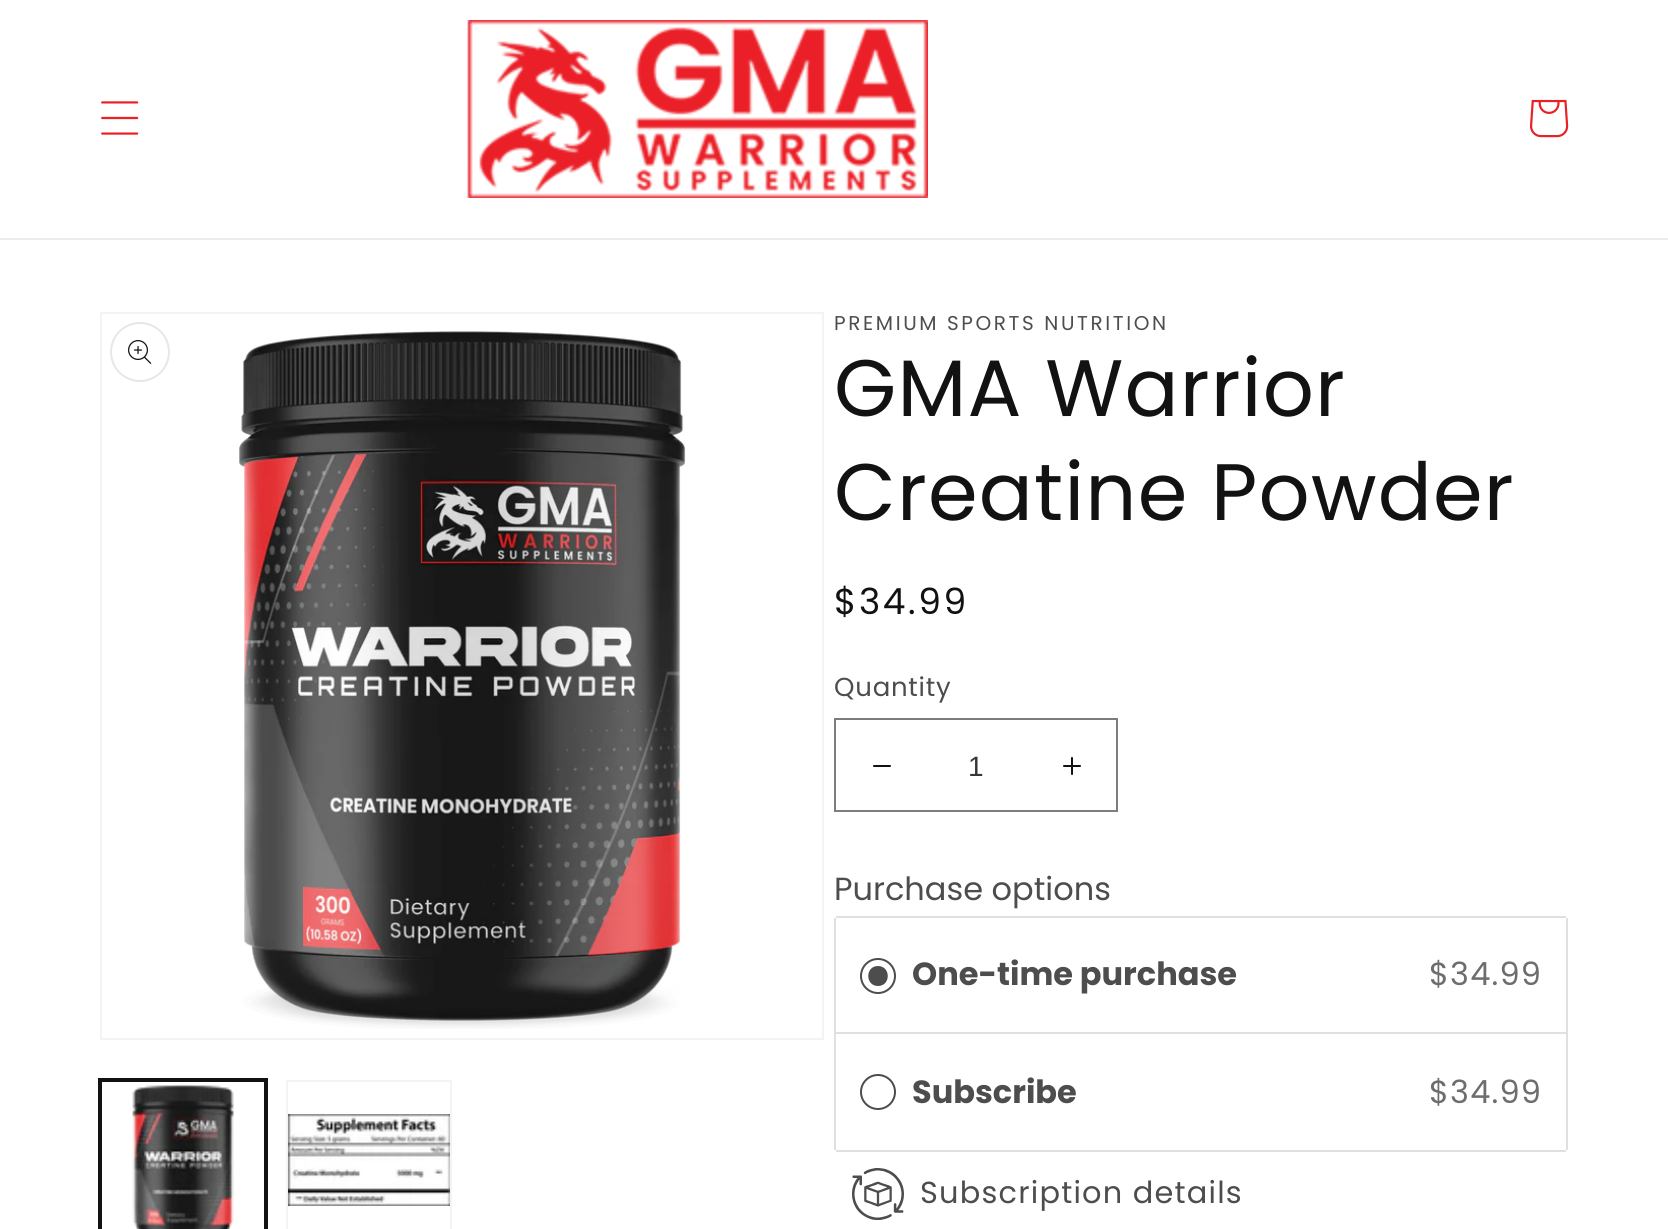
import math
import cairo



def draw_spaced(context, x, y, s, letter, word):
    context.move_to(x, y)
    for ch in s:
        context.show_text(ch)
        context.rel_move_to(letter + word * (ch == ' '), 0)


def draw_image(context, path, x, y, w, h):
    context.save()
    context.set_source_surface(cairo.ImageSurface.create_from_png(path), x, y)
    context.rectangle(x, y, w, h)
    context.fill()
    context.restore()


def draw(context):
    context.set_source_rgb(1, 1, 1)
    context.paint()
    context.set_source_rgb(236 / 255, 236 / 255, 236 / 255)
    context.rectangle(0, 238, 1668, 2)
    context.fill()
    draw_image(context, "images/1.png", 101, 101, 38, 34)
    draw_image(context, "images/2.png", 467, 20, 461, 178)
    draw_image(context, "images/3.png", 1530, 99, 39, 39)
    context.rectangle(101, 313, 722, 726)
    context.set_source_rgb(243 / 255, 243 / 255, 243 / 255)
    context.stroke()
    draw_image(context, "images/4.png", 239, 331, 447, 698)
    context.arc(140, 352, 29, 0, 2 * math.pi)
    context.set_source_rgb(231 / 255, 231 / 255, 231 / 255)
    context.stroke()
    draw_image(context, "images/5.png", 128, 340, 24, 24)
    context.rectangle(99, 1079, 168, 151)
    context.set_source_rgb(18 / 255, 18 / 255, 18 / 255)
    context.stroke()
    context.rectangle(101, 1081, 164, 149)
    context.stroke()
    draw_image(context, "images/6.png", 132, 1084, 102, 145)
    context.rectangle(287, 1081, 164, 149)
    context.set_source_rgb(243 / 255, 243 / 255, 243 / 255)
    context.stroke()
    draw_image(context, "images/7.png", 288, 1114, 162, 92)
    draw_image(context, "images/8.png", 873, 765, 18, 2)
    draw_image(context, "images/9.png", 1063, 757, 18, 18)
    context.rectangle(835, 719, 282, 92)
    context.set_source_rgb(125 / 255, 125 / 255, 125 / 255)
    context.stroke()
    context.set_source_rgb(224 / 255, 224 / 255, 224 / 255)
    context.rectangle(836, 916, 730, 2)
    context.fill()
    context.rectangle(1566, 918, 2, 232)
    context.fill()
    context.rectangle(834, 918, 2, 232)
    context.fill()
    context.rectangle(836, 1032, 730, 2)
    context.fill()
    context.arc(878, 976, 17, 0, 2 * math.pi)
    context.set_source_rgb(77 / 255, 77 / 255, 77 / 255)
    context.stroke()
    context.new_path()
    context.move_to(878, 966)
    context.curve_to(865, 966, 865, 986, 878, 986)
    context.curve_to(891, 986, 891, 966, 878, 966)
    context.close_path()
    context.fill()
    context.set_source_rgb(224 / 255, 224 / 255, 224 / 255)
    context.rectangle(836, 1150, 730, 2)
    context.fill()
    context.arc(878, 1092, 17, 0, 2 * math.pi)
    context.set_source_rgb(77 / 255, 77 / 255, 77 / 255)
    context.stroke()
    draw_image(context, "images/10.png", 852, 1168, 52, 52)
    context.select_font_face("Poppins")
    context.set_font_size(20)
    draw_spaced(context, 834, 330, "PREMIUM SPORTS NUTRITION", 2.6, 0)
    context.set_font_size(80)
    context.set_source_rgb(18 / 255, 18 / 255, 18 / 255)
    draw_spaced(context, 834, 416, "GMA Warrior", 1.2, 0)
    draw_spaced(context, 834, 520, "Creatine Powder", 1.2, 0)
    context.set_font_size(36)
    draw_spaced(context, 834, 614, "$34.99", 2.6, 0)
    context.set_font_size(26)
    context.set_source_rgb(77 / 255, 77 / 255, 77 / 255)
    draw_spaced(context, 834, 696, "Quantity", 0.75, 0)
    context.select_font_face("Liberation Sans")
    context.set_font_size(28)
    context.set_source_rgb(54 / 255, 54 / 255, 54 / 255)
    context.move_to(968, 776)
    context.show_text("1")
    context.select_font_face("Poppins")
    context.set_font_size(32)
    context.set_source_rgb(77 / 255, 77 / 255, 77 / 255)
    context.move_to(834, 900)
    context.show_text("Purchase options")
    context.select_font_face("Poppins", cairo.FontSlant.NORMAL, cairo.FontWeight.BOLD)
    context.move_to(912, 985)
    context.show_text("One-time purchase")
    context.select_font_face("Poppins")
    context.set_source_rgb(109 / 255, 109 / 255, 109 / 255)
    draw_spaced(context, 1429, 985, "$34.99", 1.2, 0)
    context.select_font_face("Poppins", cairo.FontSlant.NORMAL, cairo.FontWeight.BOLD)
    context.set_source_rgb(77 / 255, 77 / 255, 77 / 255)
    context.move_to(912, 1103)
    context.show_text("Subscribe")
    context.select_font_face("Poppins")
    context.set_source_rgb(109 / 255, 109 / 255, 109 / 255)
    draw_spaced(context, 1429, 1103, "$34.99", 1.2, 0)
    context.set_font_size(30.4)
    context.set_source_rgb(77 / 255, 77 / 255, 77 / 255)
    draw_spaced(context, 920, 1203, "Subscription details", 1.2, 0)


surface = cairo.ImageSurface(cairo.Format.RGB24, 1668, 1229)
context = cairo.Context(surface)
options = cairo.FontOptions()
options.set_hint_metrics(cairo.HintMetrics.OFF)
options.set_hint_style(cairo.HintStyle.NONE)
context.set_font_options(options)
context.set_miter_limit(4)
draw(context)
surface.write_to_png("out.png")
